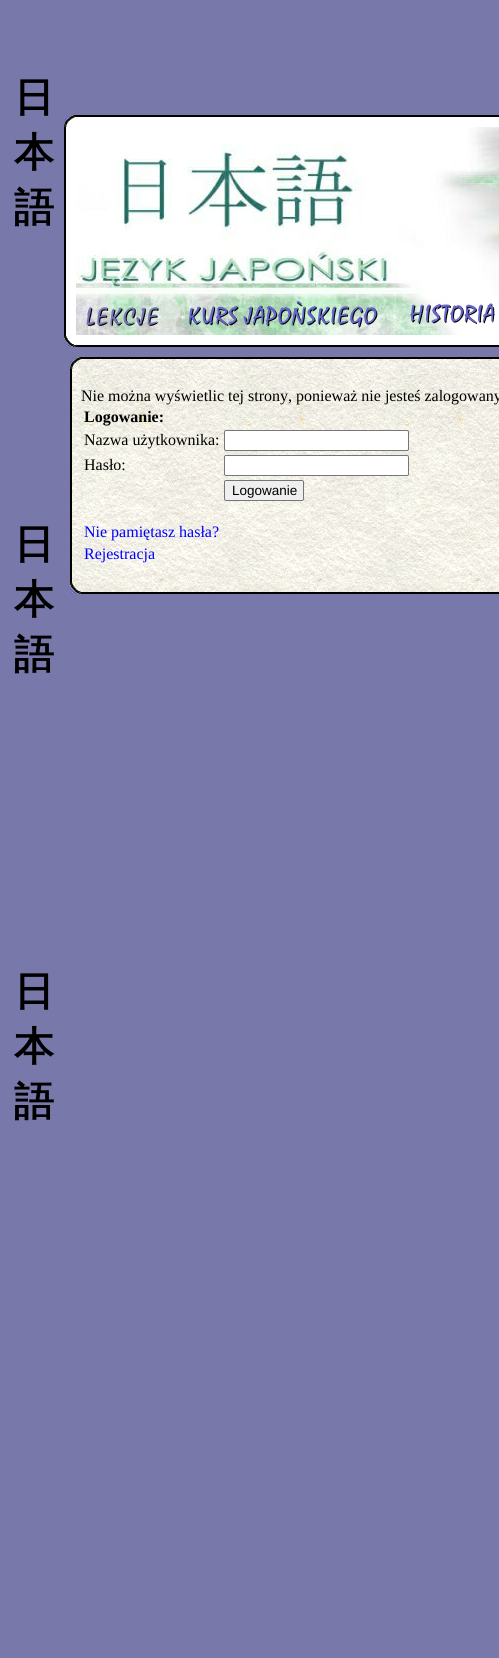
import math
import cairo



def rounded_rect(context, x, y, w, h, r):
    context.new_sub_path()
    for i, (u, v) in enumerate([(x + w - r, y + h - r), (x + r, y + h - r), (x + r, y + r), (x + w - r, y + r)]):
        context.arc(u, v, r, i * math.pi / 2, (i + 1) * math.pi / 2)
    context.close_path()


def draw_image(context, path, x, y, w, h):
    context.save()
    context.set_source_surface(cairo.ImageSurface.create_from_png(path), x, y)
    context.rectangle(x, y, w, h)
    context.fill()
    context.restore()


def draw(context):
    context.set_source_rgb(120 / 255, 120 / 255, 170 / 255)
    context.paint()
    draw_image(context, "images/1.png", 64, 115, 12, 12)
    draw_image(context, "images/2.png", 76, 115, 423, 12)
    draw_image(context, "images/3.png", 64, 127, 12, 208)
    draw_image(context, "images/4.png", 76, 127, 423, 168)
    draw_image(context, "images/5.png", 76, 295, 94, 40)
    draw_image(context, "images/6.png", 170, 295, 225, 40)
    draw_image(context, "images/7.png", 395, 295, 104, 40)
    draw_image(context, "images/8.png", 64, 335, 12, 12)
    draw_image(context, "images/9.png", 76, 335, 423, 12)
    draw_image(context, "images/10.png", 81, 369, 418, 213)
    draw_image(context, "images/11.png", 70, 357, 11, 12)
    draw_image(context, "images/12.png", 81, 357, 418, 12)
    draw_image(context, "images/13.png", 70, 369, 11, 213)
    context.set_source_rgb(1, 1, 1)
    rounded_rect(context, 224.5, 430.5, 184, 20, 1.5)
    context.fill_preserve()
    context.set_source_rgb(118 / 255, 118 / 255, 118 / 255)
    context.set_line_width(1)
    context.stroke()
    context.set_source_rgb(1, 1, 1)
    rounded_rect(context, 224.5, 455.5, 184, 20, 1.5)
    context.fill_preserve()
    context.set_source_rgb(118 / 255, 118 / 255, 118 / 255)
    context.stroke()
    context.set_source_rgb(239 / 255, 239 / 255, 239 / 255)
    rounded_rect(context, 224.5, 480.5, 79, 20, 1.5)
    context.fill_preserve()
    context.set_source_rgb(118 / 255, 118 / 255, 118 / 255)
    context.stroke()
    draw_image(context, "images/14.png", 70, 582, 11, 12)
    draw_image(context, "images/15.png", 81, 582, 418, 12)
    context.select_font_face("WenQuanYi Zen Hei", cairo.FontSlant.NORMAL, cairo.FontWeight.BOLD)
    context.set_font_size(40)
    context.set_source_rgb(0, 0, 0)
    context.move_to(14, 111)
    context.show_text("日")
    context.move_to(14, 166)
    context.show_text("本")
    context.move_to(14, 221)
    context.show_text("語")
    context.move_to(14, 558)
    context.show_text("日")
    context.move_to(14, 613)
    context.show_text("本")
    context.move_to(14, 668)
    context.show_text("語")
    context.move_to(14, 1005)
    context.show_text("日")
    context.move_to(14, 1060)
    context.show_text("本")
    context.move_to(14, 1115)
    context.show_text("語")
    context.select_font_face("Liberation Serif")
    context.set_font_size(16)
    context.move_to(81, 401)
    context.show_text("Nie można wyświetlic tej strony, ponieważ nie jesteś zalogowany")
    context.select_font_face("Liberation Serif", cairo.FontSlant.NORMAL, cairo.FontWeight.BOLD)
    context.move_to(84, 422)
    context.show_text("Logowanie:")
    context.select_font_face("Liberation Serif")
    context.move_to(84, 445)
    context.show_text("Nazwa użytkownika:")
    context.move_to(84, 470)
    context.show_text("Hasło:")
    context.select_font_face("Liberation Sans")
    context.set_font_size(13.5)
    context.move_to(232, 495)
    context.show_text("Logowanie")
    context.select_font_face("Liberation Serif")
    context.set_font_size(16)
    context.set_source_rgb(0, 0, 1)
    context.move_to(84, 537)
    context.show_text("Nie pamiętasz hasła?")
    context.move_to(84, 559)
    context.show_text("Rejestracja")


surface = cairo.ImageSurface(cairo.Format.RGB24, 499, 1658)
context = cairo.Context(surface)
options = cairo.FontOptions()
options.set_hint_metrics(cairo.HintMetrics.OFF)
options.set_hint_style(cairo.HintStyle.NONE)
context.set_font_options(options)
context.set_miter_limit(4)
draw(context)
surface.write_to_png("out.png")
